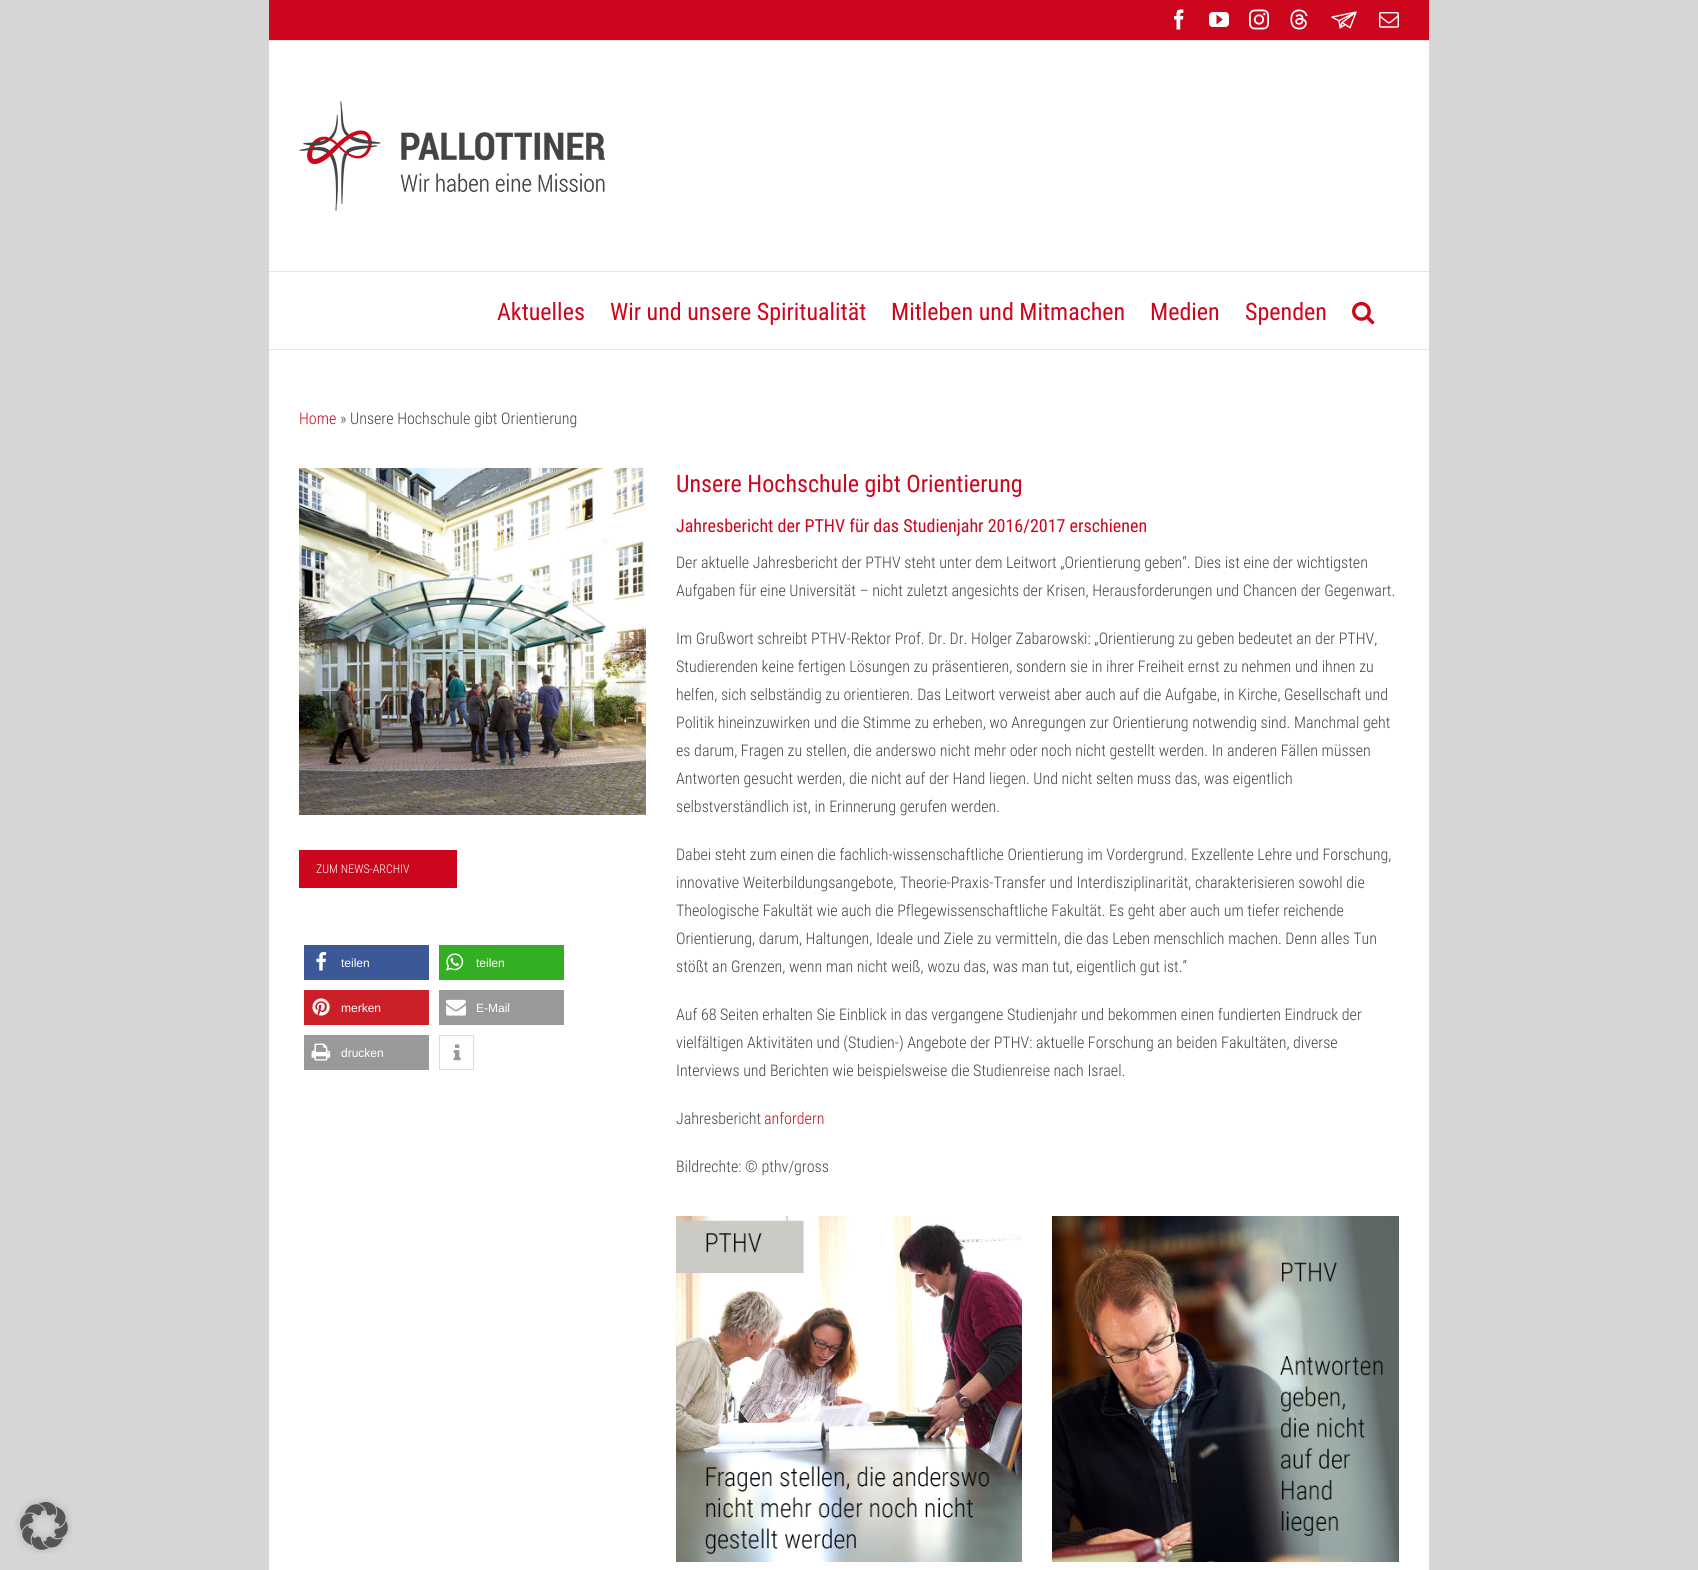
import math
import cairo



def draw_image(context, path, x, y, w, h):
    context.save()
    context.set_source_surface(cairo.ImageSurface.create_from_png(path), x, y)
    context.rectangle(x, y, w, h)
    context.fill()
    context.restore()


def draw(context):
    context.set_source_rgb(215 / 255, 214 / 255, 214 / 255)
    context.paint()
    context.set_source_rgb(203 / 255, 6 / 255, 29 / 255)
    context.rectangle(269, 0, 1160, 40)
    context.fill()
    context.set_source_rgb(229 / 255, 229 / 255, 229 / 255)
    context.rectangle(269, 40, 1160, 1)
    context.fill()
    draw_image(context, "images/1.png", 1174, 9, 10, 21)
    draw_image(context, "images/2.png", 1209, 12, 20, 15)
    draw_image(context, "images/3.png", 1249, 9, 20, 21)
    draw_image(context, "images/4.png", 1290, 9, 18, 21)
    draw_image(context, "images/5.png", 1331, 11, 26, 18)
    draw_image(context, "images/6.png", 1379, 12, 20, 16)
    context.set_source_rgb(1, 1, 1)
    context.rectangle(269, 41, 1160, 230)
    context.fill()
    context.set_source_rgb(229 / 255, 229 / 255, 229 / 255)
    context.rectangle(269, 271, 1160, 1)
    context.fill()
    draw_image(context, "images/7.png", 299, 101, 306, 110)
    context.set_source_rgb(1, 1, 1)
    context.rectangle(269, 272, 1160, 77)
    context.fill()
    context.set_source_rgb(229 / 255, 229 / 255, 229 / 255)
    context.rectangle(269, 349, 1160, 1)
    context.fill()
    draw_image(context, "images/8.png", 1352, 301, 23, 24)
    context.set_source_rgb(1, 1, 1)
    context.rectangle(269, 350, 1160, 1220)
    context.fill()
    draw_image(context, "images/9.png", 299, 468, 347, 347)
    context.set_source_rgb(203 / 255, 6 / 255, 29 / 255)
    context.rectangle(299, 850, 158, 38)
    context.fill()
    context.set_source_rgb(59 / 255, 89 / 255, 152 / 255)
    context.rectangle(304, 945, 125, 35)
    context.fill()
    draw_image(context, "images/10.png", 316, 951, 11, 20)
    context.set_source_rgb(52 / 255, 175 / 255, 35 / 255)
    context.rectangle(439, 945, 125, 35)
    context.fill()
    draw_image(context, "images/11.png", 446, 953, 18, 18)
    context.set_source_rgb(203 / 255, 32 / 255, 39 / 255)
    context.rectangle(304, 990, 125, 35)
    context.fill()
    draw_image(context, "images/12.png", 312, 998, 18, 18)
    context.set_source_rgb(153 / 255, 153 / 255, 153 / 255)
    context.rectangle(439, 990, 125, 35)
    context.fill()
    draw_image(context, "images/13.png", 445, 999, 21, 17)
    context.rectangle(304, 1035, 125, 35)
    context.fill()
    draw_image(context, "images/14.png", 311, 1043, 20, 18)
    context.rectangle(439.5, 1035.5, 34, 34)
    context.set_source_rgb(221 / 255, 221 / 255, 221 / 255)
    context.set_line_width(1)
    context.stroke()
    draw_image(context, "images/15.png", 453, 1044, 8, 17)
    draw_image(context, "images/16.png", 676, 1216, 346, 346)
    draw_image(context, "images/17.png", 1052, 1216, 347, 346)
    draw_image(context, "images/18.png", 15, 1497, 57, 57)
    context.select_font_face("Roboto Condensed")
    context.set_font_size(24)
    context.set_source_rgb(204 / 255, 6 / 255, 29 / 255)
    context.move_to(497, 320)
    context.show_text("Aktuelles")
    context.move_to(610, 320)
    context.show_text("Wir und unsere Spiritualität")
    context.move_to(891, 320)
    context.show_text("Mitleben und Mitmachen")
    context.move_to(1150, 320)
    context.show_text("Medien")
    context.move_to(1245, 320)
    context.show_text("Spenden")
    context.select_font_face("Roboto Condensed Light")
    context.set_font_size(16)
    context.move_to(299, 424)
    context.show_text("Home")
    context.set_source_rgb(68 / 255, 68 / 255, 68 / 255)
    context.move_to(340, 424)
    context.show_text("» Unsere Hochschule gibt Orientierung")
    context.set_font_size(12)
    context.set_source_rgb(1, 1, 1)
    context.move_to(316, 873)
    context.show_text("ZUM NEWS-ARCHIV")
    context.select_font_face("Liberation Sans")
    context.move_to(341, 967)
    context.show_text("teilen")
    context.move_to(476, 967)
    context.show_text("teilen")
    context.move_to(341, 1012)
    context.show_text("merken")
    context.move_to(476, 1012)
    context.show_text("E-Mail")
    context.move_to(341, 1057)
    context.show_text("drucken")
    context.select_font_face("Roboto Condensed")
    context.set_font_size(24)
    context.set_source_rgb(204 / 255, 6 / 255, 29 / 255)
    context.move_to(676, 492)
    context.show_text("Unsere Hochschule gibt Orientierung")
    context.set_font_size(18)
    context.move_to(676, 532)
    context.show_text("Jahresbericht der PTHV für das Studienjahr 2016/2017 erschienen")
    context.select_font_face("Roboto Condensed Light")
    context.set_font_size(16)
    context.set_source_rgb(68 / 255, 68 / 255, 68 / 255)
    context.move_to(676, 568)
    context.show_text("Der aktuelle Jahresbericht der PTHV steht unter dem Leitwort „Orientierung geben“. Dies ist eine der wichtigsten")
    context.move_to(676, 596)
    context.show_text("Aufgaben für eine Universität – nicht zuletzt angesichts der Krisen, Herausforderungen und Chancen der Gegenwart.")
    context.move_to(676, 644)
    context.show_text("Im Grußwort schreibt PTHV-Rektor Prof. Dr. Dr. Holger Zabarowski: „Orientierung zu geben bedeutet an der PTHV,")
    context.move_to(676, 672)
    context.show_text("Studierenden keine fertigen Lösungen zu präsentieren, sondern sie in ihrer Freiheit ernst zu nehmen und ihnen zu")
    context.move_to(676, 700)
    context.show_text("helfen, sich selbständig zu orientieren. Das Leitwort verweist aber auch auf die Aufgabe, in Kirche, Gesellschaft und")
    context.move_to(676, 728)
    context.show_text("Politik hineinzuwirken und die Stimme zu erheben, wo Anregungen zur Orientierung notwendig sind. Manchmal geht")
    context.move_to(676, 756)
    context.show_text("es darum, Fragen zu stellen, die anderswo nicht mehr oder noch nicht gestellt werden. In anderen Fällen müssen")
    context.move_to(676, 784)
    context.show_text("Antworten gesucht werden, die nicht auf der Hand liegen. Und nicht selten muss das, was eigentlich")
    context.move_to(676, 812)
    context.show_text("selbstverständlich ist, in Erinnerung gerufen werden.")
    context.move_to(676, 860)
    context.show_text("Dabei steht zum einen die fachlich-wissenschaftliche Orientierung im Vordergrund. Exzellente Lehre und Forschung,")
    context.move_to(676, 888)
    context.show_text("innovative Weiterbildungsangebote, Theorie-Praxis-Transfer und Interdisziplinarität, charakterisieren sowohl die")
    context.move_to(676, 916)
    context.show_text("Theologische Fakultät wie auch die Pflegewissenschaftliche Fakultät. Es geht aber auch um tiefer reichende")
    context.move_to(676, 944)
    context.show_text("Orientierung, darum, Haltungen, Ideale und Ziele zu vermitteln, die das Leben menschlich machen. Denn alles Tun")
    context.move_to(676, 972)
    context.show_text("stößt an Grenzen, wenn man nicht weiß, wozu das, was man tut, eigentlich gut ist.“")
    context.move_to(676, 1020)
    context.show_text("Auf 68 Seiten erhalten Sie Einblick in das vergangene Studienjahr und bekommen einen fundierten Eindruck der")
    context.move_to(676, 1048)
    context.show_text("vielfältigen Aktivitäten und (Studien-) Angebote der PTHV: aktuelle Forschung an beiden Fakultäten, diverse")
    context.move_to(676, 1076)
    context.show_text("Interviews und Berichten wie beispielsweise die Studienreise nach Israel.")
    context.move_to(676, 1124)
    context.show_text("Jahresbericht")
    context.set_source_rgb(204 / 255, 6 / 255, 29 / 255)
    context.move_to(764, 1124)
    context.show_text("anfordern")
    context.set_source_rgb(68 / 255, 68 / 255, 68 / 255)
    context.move_to(676, 1172)
    context.show_text("Bildrechte: © pthv/gross")


surface = cairo.ImageSurface(cairo.Format.RGB24, 1698, 1570)
context = cairo.Context(surface)
options = cairo.FontOptions()
options.set_hint_metrics(cairo.HintMetrics.OFF)
options.set_hint_style(cairo.HintStyle.NONE)
context.set_font_options(options)
context.set_miter_limit(4)
draw(context)
surface.write_to_png("out.png")
